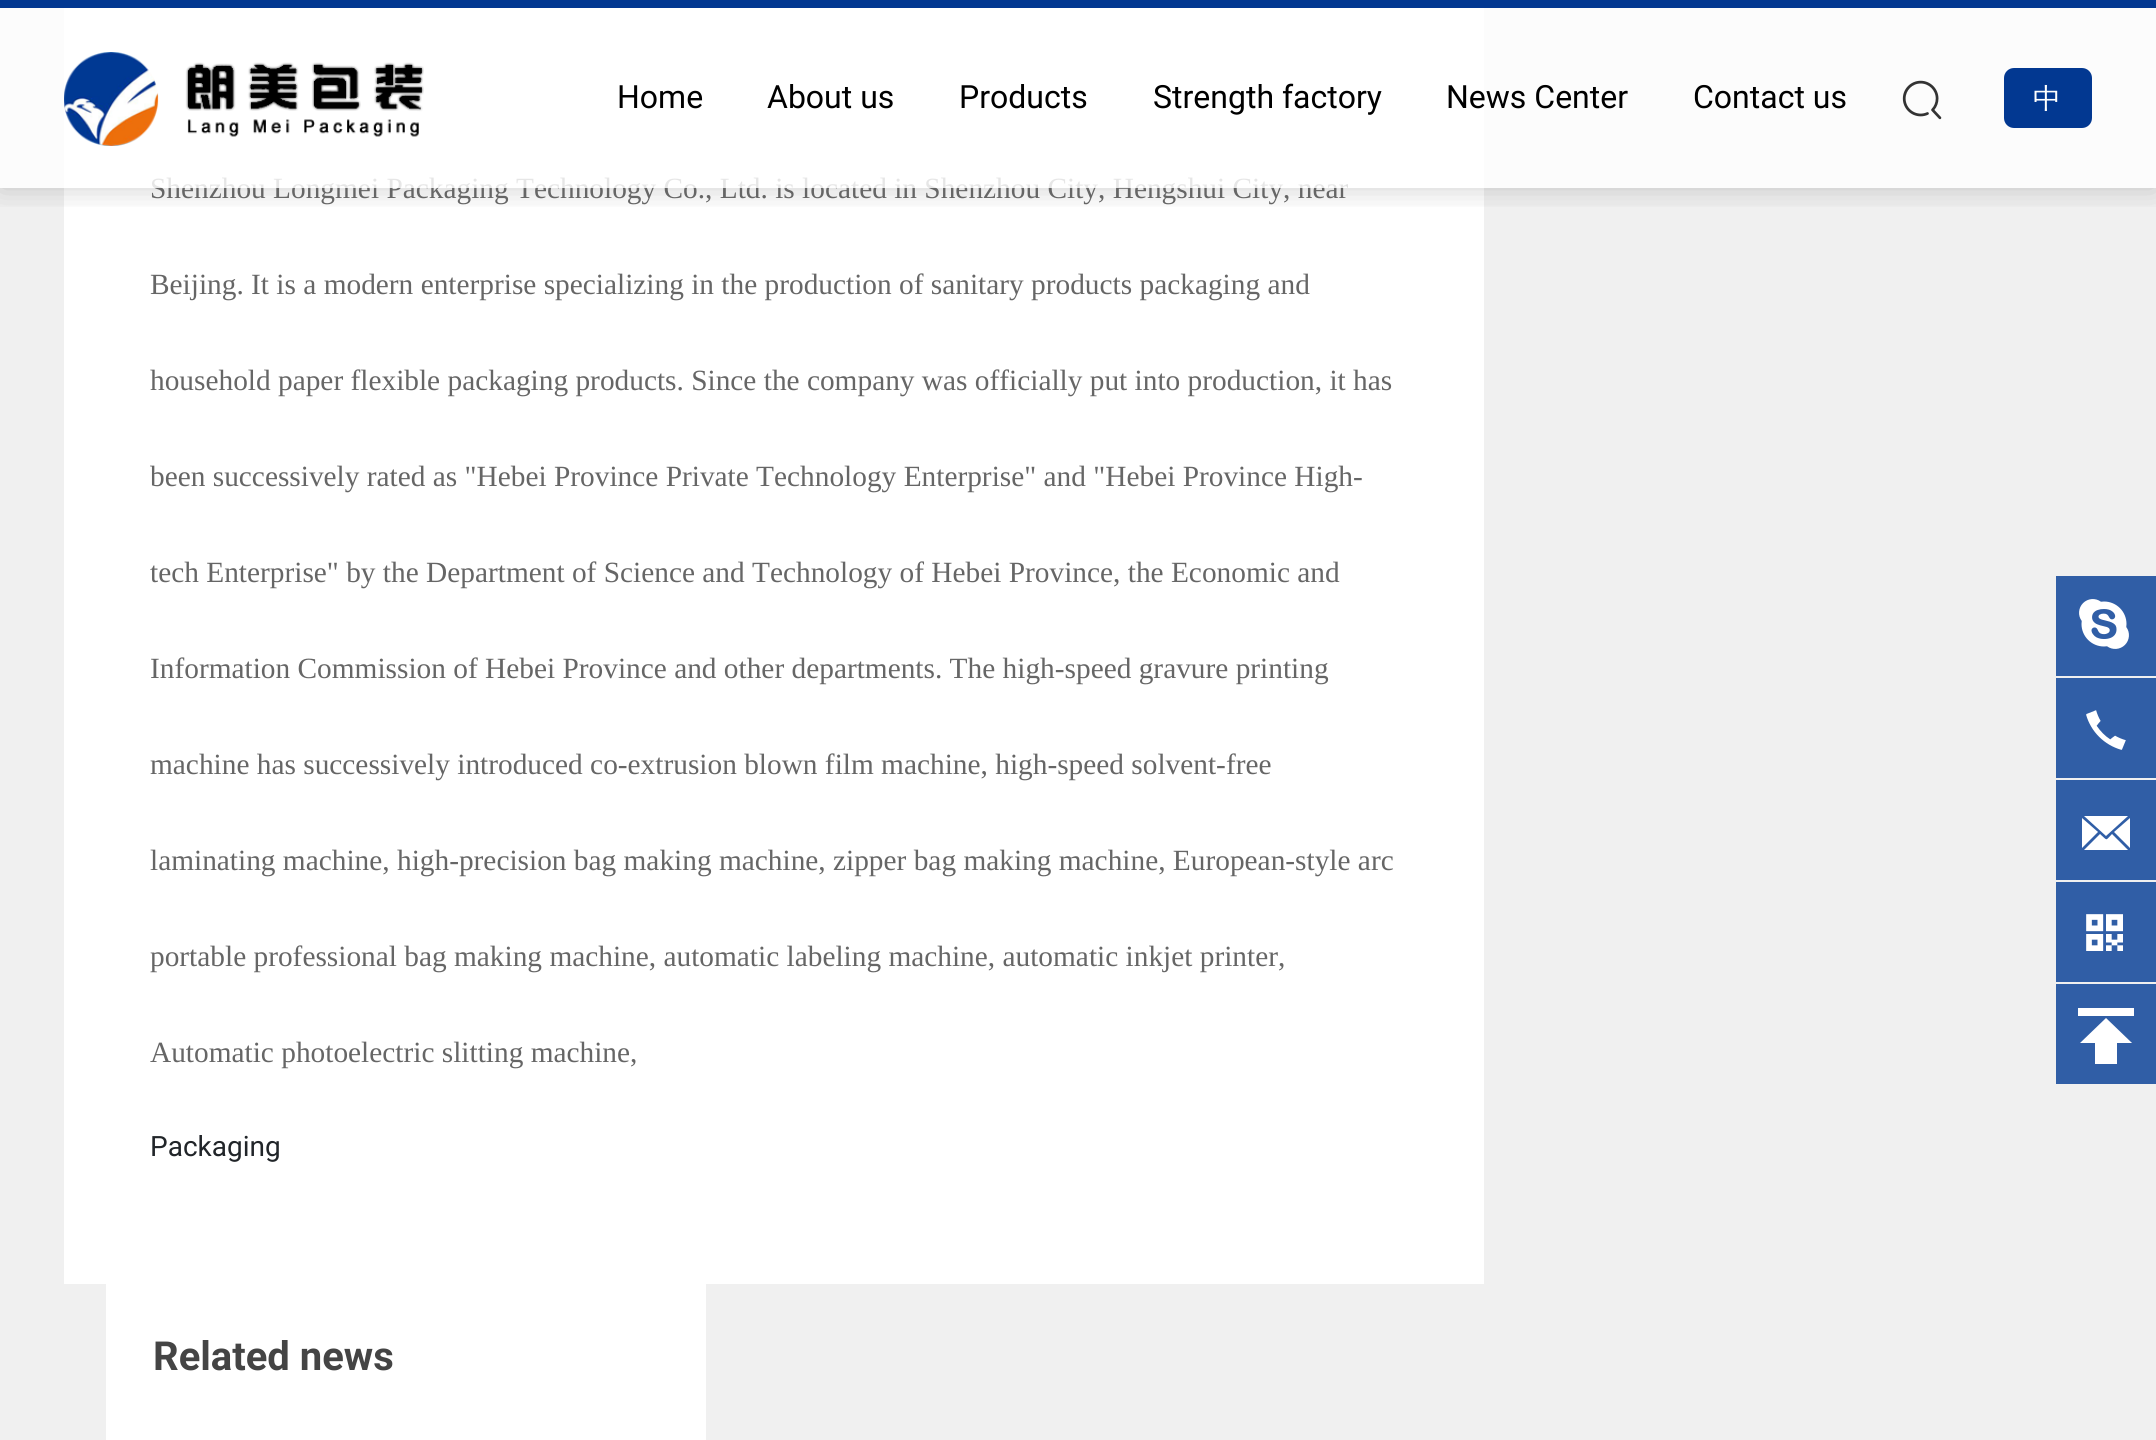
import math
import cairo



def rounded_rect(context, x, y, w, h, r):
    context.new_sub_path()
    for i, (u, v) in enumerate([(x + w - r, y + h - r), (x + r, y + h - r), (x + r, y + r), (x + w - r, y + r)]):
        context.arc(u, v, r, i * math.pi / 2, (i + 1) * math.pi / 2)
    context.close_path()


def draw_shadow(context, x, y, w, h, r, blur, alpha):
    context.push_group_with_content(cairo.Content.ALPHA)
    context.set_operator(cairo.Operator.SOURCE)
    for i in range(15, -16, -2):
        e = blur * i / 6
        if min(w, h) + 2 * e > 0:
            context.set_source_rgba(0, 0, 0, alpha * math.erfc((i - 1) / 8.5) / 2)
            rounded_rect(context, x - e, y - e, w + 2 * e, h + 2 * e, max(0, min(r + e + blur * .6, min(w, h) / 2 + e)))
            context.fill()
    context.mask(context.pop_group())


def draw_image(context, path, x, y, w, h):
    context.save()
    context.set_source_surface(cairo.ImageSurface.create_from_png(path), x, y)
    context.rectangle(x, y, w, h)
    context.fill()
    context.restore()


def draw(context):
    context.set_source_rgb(240 / 255, 240 / 255, 240 / 255)
    context.paint()
    context.set_source_rgb(1, 1, 1)
    context.rectangle(64, 8, 1420, 1276)
    context.fill()
    context.save()
    context.rectangle(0, 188, 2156, 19)
    context.clip()
    context.set_source_rgb(0, 0, 0)
    draw_shadow(context, 0, 0, 2156, 188, 0, 15, 0.2)
    context.restore()
    context.set_source_rgb(2 / 255, 56 / 255, 145 / 255)
    context.rectangle(0, 0, 2156, 8)
    context.fill()
    context.set_source_rgb(1, 1, 1)
    context.rectangle(106, 1284, 600, 156)
    context.fill()
    context.set_source_rgb(48 / 255, 94 / 255, 166 / 255)
    context.rectangle(2056, 576, 100, 100)
    context.fill()
    draw_image(context, "images/3.png", 2079, 599, 50, 50)
    context.rectangle(2056, 678, 100, 100)
    context.fill()
    draw_image(context, "images/4.png", 2086, 710, 40, 40)
    context.rectangle(2056, 780, 100, 100)
    context.fill()
    context.set_source_rgb(1, 1, 1)
    context.new_path()
    context.move_to(2106, 836)
    context.line_to(2084, 816)
    context.line_to(2128, 816)
    context.close_path()
    context.move_to(2130, 819)
    context.line_to(2130, 848)
    context.line_to(2114, 832)
    context.line_to(2130, 818)
    context.close_path()
    context.move_to(2082, 818)
    context.line_to(2098, 832)
    context.line_to(2082, 848)
    context.close_path()
    context.move_to(2112, 834)
    context.line_to(2128, 850)
    context.line_to(2084, 850)
    context.line_to(2100, 834)
    context.curve_to(2108, 841, 2105, 841, 2112, 834)
    context.close_path()
    context.fill()
    context.set_source_rgb(48 / 255, 94 / 255, 166 / 255)
    context.rectangle(2056, 882, 100, 100)
    context.fill()
    draw_image(context, "images/5.png", 2086, 914, 37, 37)
    context.rectangle(2056, 984, 100, 100)
    context.fill()
    context.set_source_rgb(1, 1, 1)
    context.new_path()
    context.move_to(2106, 1018)
    context.line_to(2080, 1043)
    context.line_to(2095, 1043)
    context.line_to(2095, 1064)
    context.line_to(2117, 1064)
    context.line_to(2117, 1043)
    context.line_to(2132, 1043)
    context.close_path()
    context.move_to(2078, 1008)
    context.line_to(2134, 1008)
    context.line_to(2134, 1016)
    context.line_to(2078, 1016)
    context.close_path()
    context.fill()
    context.select_font_face("Liberation Serif")
    context.set_font_size(29.35)
    context.set_source_rgb(102 / 255, 102 / 255, 102 / 255)
    context.move_to(150, 198)
    context.show_text("Shenzhou Longmei Packaging Technology Co., Ltd. is located in Shenzhou City, Hengshui City, near")
    context.set_source_rgba(1, 1, 1, 0.8)
    context.rectangle(0, 8, 2156, 180)
    context.fill()
    context.select_font_face("Roboto")
    context.set_font_size(32)
    context.set_source_rgb(0, 0, 0)
    context.move_to(1693, 108)
    context.show_text("Contact us")
    context.move_to(1446, 108)
    context.show_text("News Center")
    context.move_to(1153, 108)
    context.show_text("Strength factory")
    context.move_to(959, 108)
    context.show_text("Products")
    context.move_to(767, 108)
    context.show_text("About us")
    context.move_to(617, 108)
    context.show_text("Home")
    draw_image(context, "images/2.png", 1902, 80, 40, 40)
    context.set_source_rgb(2 / 255, 56 / 255, 145 / 255)
    rounded_rect(context, 2004, 68, 88, 60, 10)
    context.fill()
    context.select_font_face("WenQuanYi Zen Hei Medium")
    context.set_font_size(28)
    context.set_source_rgb(1, 1, 1)
    context.move_to(2033, 108)
    context.show_text("中")
    draw_image(context, "images/1.png", 64, 52, 360, 94)
    context.set_source_rgba(1, 1, 1, 0.2)
    context.rectangle(152, 178, 1194, 10)
    context.fill()
    context.select_font_face("Liberation Serif")
    context.set_font_size(29.35)
    context.set_source_rgb(102 / 255, 102 / 255, 102 / 255)
    context.move_to(150, 294)
    context.show_text("Beijing. It is a modern enterprise specializing in the production of sanitary products packaging and")
    context.move_to(150, 390)
    context.show_text("household paper flexible packaging products. Since the company was officially put into production, it has")
    context.move_to(150, 486)
    context.show_text("been successively rated as \"Hebei Province Private Technology Enterprise\" and \"Hebei Province High-")
    context.move_to(150, 582)
    context.show_text("tech Enterprise\" by the Department of Science and Technology of Hebei Province, the Economic and")
    context.move_to(150, 678)
    context.show_text("Information Commission of Hebei Province and other departments. The high-speed gravure printing")
    context.move_to(150, 774)
    context.show_text("machine has successively introduced co-extrusion blown film machine, high-speed solvent-free")
    context.move_to(150, 870)
    context.show_text("laminating machine, high-precision bag making machine, zipper bag making machine, European-style arc")
    context.move_to(150, 966)
    context.show_text("portable professional bag making machine, automatic labeling machine, automatic inkjet printer,")
    context.move_to(150, 1062)
    context.show_text("Automatic photoelectric slitting machine,")
    context.select_font_face("Roboto")
    context.set_font_size(28)
    context.set_source_rgb(33 / 255, 37 / 255, 41 / 255)
    context.move_to(150, 1156)
    context.show_text("Packaging")
    context.select_font_face("Roboto", cairo.FontSlant.NORMAL, cairo.FontWeight.BOLD)
    context.set_font_size(40)
    context.set_source_rgb(68 / 255, 68 / 255, 68 / 255)
    context.move_to(153, 1370)
    context.show_text("Related news")


surface = cairo.ImageSurface(cairo.Format.RGB24, 2156, 1440)
context = cairo.Context(surface)
options = cairo.FontOptions()
options.set_hint_metrics(cairo.HintMetrics.OFF)
options.set_hint_style(cairo.HintStyle.NONE)
context.set_font_options(options)
context.set_miter_limit(4)
draw(context)
surface.write_to_png("out.png")
